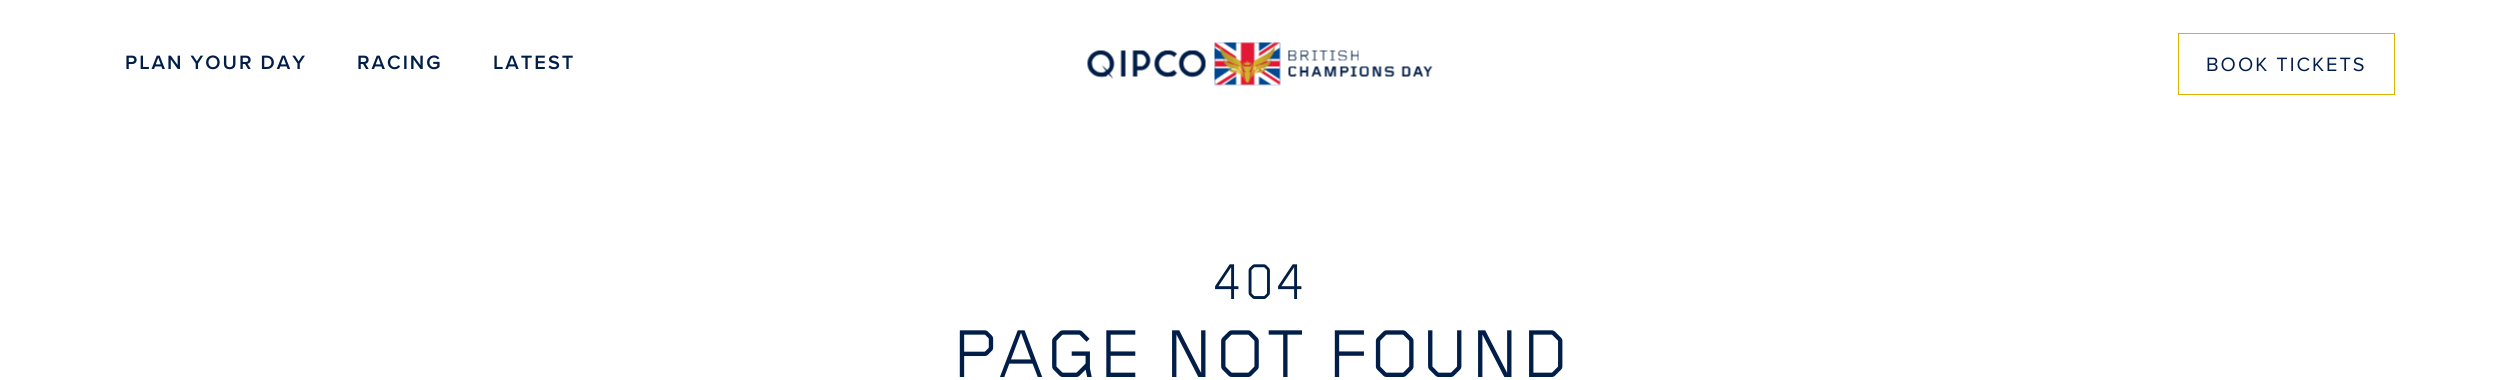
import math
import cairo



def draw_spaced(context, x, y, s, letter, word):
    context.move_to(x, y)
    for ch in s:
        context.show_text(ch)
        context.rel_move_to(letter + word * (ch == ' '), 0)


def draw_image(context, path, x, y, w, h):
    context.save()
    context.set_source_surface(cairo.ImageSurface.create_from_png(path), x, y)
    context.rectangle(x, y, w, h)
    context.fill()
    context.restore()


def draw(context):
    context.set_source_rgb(1, 1, 1)
    context.paint()
    draw_image(context, "images/1.png", 1087, 42, 346, 44)
    context.rectangle(2178.5, 33.5, 216, 61)
    context.set_source_rgb(216 / 255, 182 / 255, 0)
    context.set_line_width(1)
    context.stroke()
    context.select_font_face("Proxima Nova SemiBold")
    context.set_font_size(20)
    context.set_source_rgb(1 / 255, 30 / 255, 73 / 255)
    draw_spaced(context, 125, 69, "PLAN YOUR DAY", 2, 0)
    draw_spaced(context, 357, 69, "RACING", 2, 0)
    draw_spaced(context, 493, 69, "LATEST", 2, 0)
    context.select_font_face("Proxima Nova")
    draw_spaced(context, 2206, 71, "BOOK TICKETS", 2, 0)
    context.select_font_face("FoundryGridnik")
    context.set_font_size(52)
    context.move_to(1212, 299)
    context.show_text("404")
    context.set_font_size(70)
    context.move_to(951, 377)
    context.show_text("PAGE NOT FOUND")


surface = cairo.ImageSurface(cairo.Format.RGB24, 2519, 380)
context = cairo.Context(surface)
options = cairo.FontOptions()
options.set_hint_metrics(cairo.HintMetrics.OFF)
options.set_hint_style(cairo.HintStyle.NONE)
context.set_font_options(options)
context.set_miter_limit(4)
draw(context)
surface.write_to_png("out.png")
